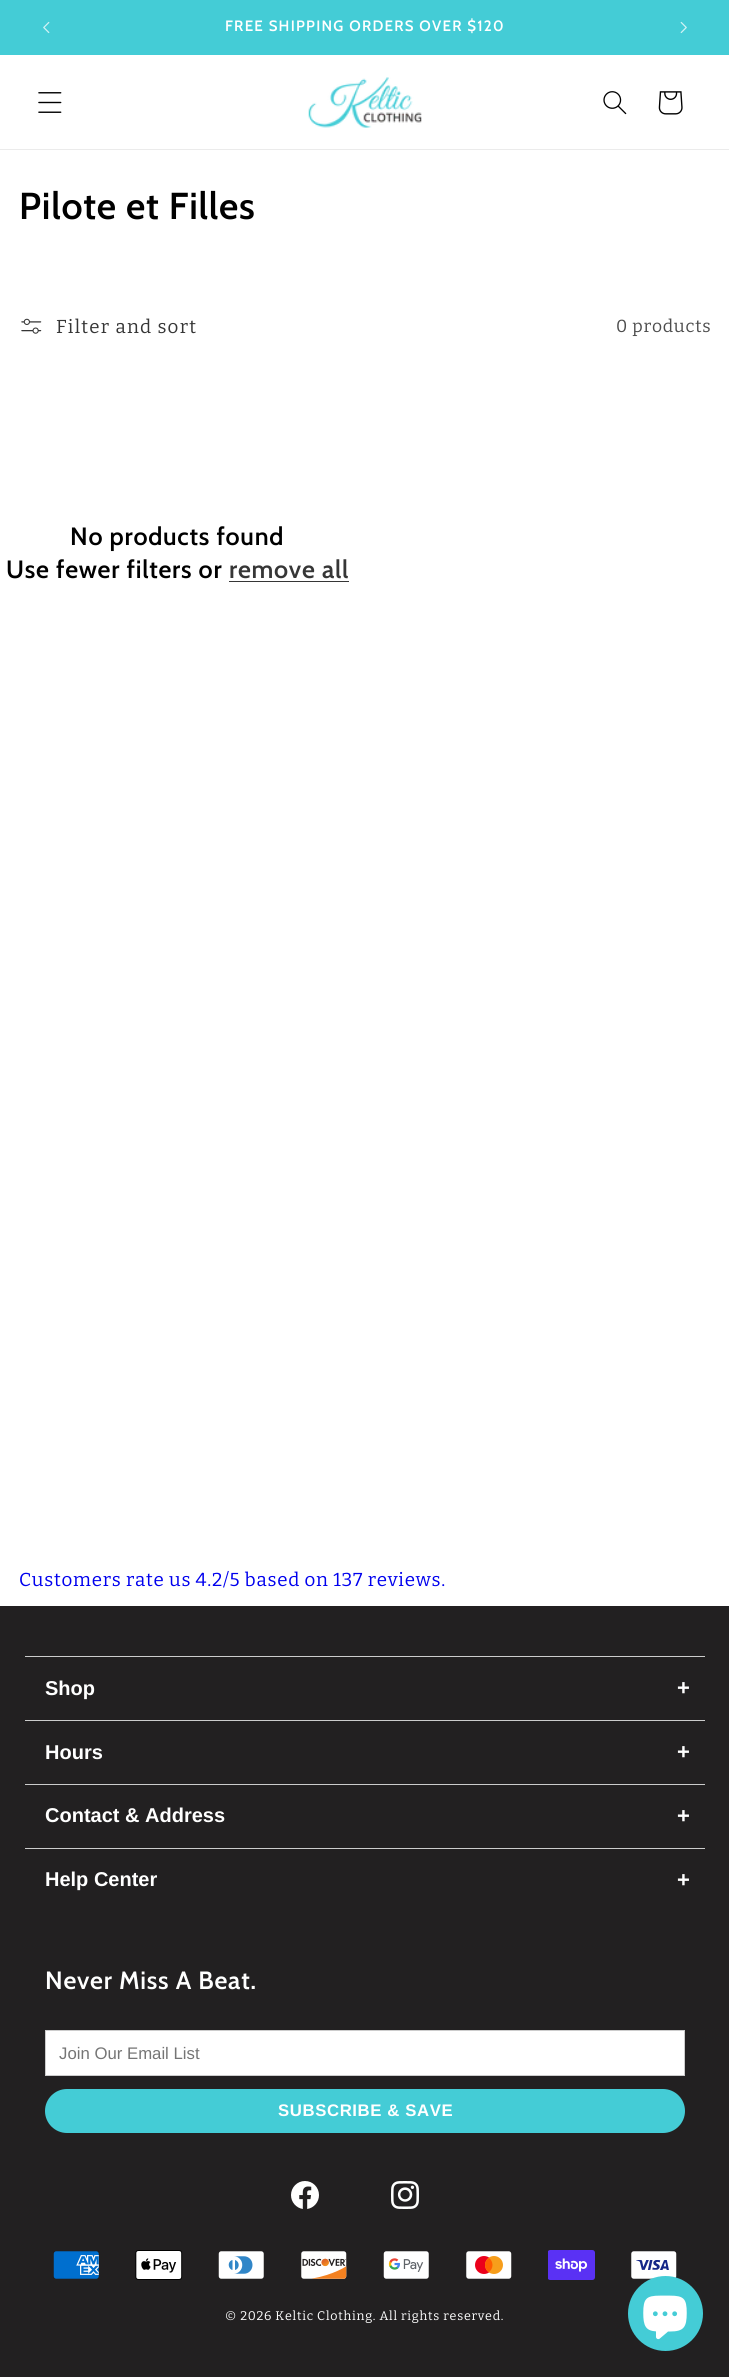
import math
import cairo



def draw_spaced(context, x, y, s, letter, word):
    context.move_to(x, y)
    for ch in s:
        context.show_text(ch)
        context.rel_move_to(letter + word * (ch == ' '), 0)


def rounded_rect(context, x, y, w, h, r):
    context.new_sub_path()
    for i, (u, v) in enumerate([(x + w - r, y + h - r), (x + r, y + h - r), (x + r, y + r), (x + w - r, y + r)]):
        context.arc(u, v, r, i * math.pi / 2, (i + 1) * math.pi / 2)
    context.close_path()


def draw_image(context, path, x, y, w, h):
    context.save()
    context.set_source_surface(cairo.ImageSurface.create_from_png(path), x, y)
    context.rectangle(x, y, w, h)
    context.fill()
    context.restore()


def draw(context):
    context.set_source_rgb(1, 1, 1)
    context.paint()
    context.set_source_rgb(68 / 255, 204 / 255, 214 / 255)
    context.rectangle(0, 0, 729, 55)
    context.fill()
    draw_image(context, "images/1.png", 43, 21, 7, 13)
    draw_image(context, "images/2.png", 680, 21, 7, 13)
    context.set_source_rgb(235 / 255, 235 / 255, 235 / 255)
    context.rectangle(0, 149, 729, 1)
    context.fill()
    draw_image(context, "images/3.png", 38, 92, 24, 21)
    draw_image(context, "images/4.png", 308, 77, 114, 51)
    draw_image(context, "images/5.png", 603, 91, 24, 24)
    draw_image(context, "images/6.png", 658, 91, 25, 24)
    draw_image(context, "images/7.png", 21, 318, 21, 16)
    context.set_source_rgb(54 / 255, 54 / 255, 54 / 255)
    context.rectangle(229, 581, 120, 1)
    context.fill()
    context.set_source_rgb(34 / 255, 32 / 255, 33 / 255)
    context.rectangle(0, 1606, 729, 771)
    context.fill()
    context.set_source_rgb(204 / 255, 204 / 255, 204 / 255)
    context.rectangle(25, 1656, 680, 1)
    context.fill()
    context.rectangle(25, 1720, 680, 1)
    context.fill()
    context.rectangle(25, 1784, 680, 1)
    context.fill()
    context.rectangle(25, 1848, 680, 1)
    context.fill()
    context.set_source_rgb(1, 1, 1)
    context.rectangle(45.5, 2030.5, 639, 45)
    context.fill_preserve()
    context.set_source_rgb(204 / 255, 204 / 255, 204 / 255)
    context.set_line_width(1)
    context.stroke()
    context.set_source_rgb(68 / 255, 204 / 255, 214 / 255)
    rounded_rect(context, 45, 2089, 640, 44, 22)
    context.fill()
    draw_image(context, "images/8.png", 291, 2181, 28, 28)
    draw_image(context, "images/9.png", 391, 2181, 28, 28)
    draw_image(context, "images/10.png", 53, 2251, 46, 28)
    draw_image(context, "images/11.png", 135, 2250, 48, 30)
    draw_image(context, "images/12.png", 218, 2251, 46, 28)
    draw_image(context, "images/13.png", 301, 2251, 46, 28)
    draw_image(context, "images/14.png", 383, 2251, 46, 28)
    draw_image(context, "images/15.png", 466, 2251, 46, 28)
    draw_image(context, "images/16.png", 548, 2250, 47, 30)
    draw_image(context, "images/17.png", 631, 2251, 46, 28)
    context.arc(665.5, 2313.5, 37.5, 0, 2 * math.pi)
    context.fill()
    draw_image(context, "images/18.png", 643, 2295, 44, 45)
    context.select_font_face("Cabin SemiBold")
    context.set_font_size(15)
    context.set_source_rgb(1, 1, 1)
    draw_spaced(context, 225, 31, "FREE SHIPPING ORDERS OVER $120", 1.25, 0)
    context.set_font_size(37.5)
    context.set_source_rgb(0, 0, 0)
    draw_spaced(context, 19, 219, "Pilote et Filles", 0.75, 0)
    context.select_font_face("bitter")
    context.set_font_size(18.75)
    context.set_source_rgb(54 / 255, 54 / 255, 54 / 255)
    draw_spaced(context, 56, 333, "Filter and sort", 1.25, 0)
    context.set_font_size(17.5)
    context.set_source_rgb(77 / 255, 77 / 255, 77 / 255)
    draw_spaced(context, 616, 332, "0 products", 0.75, 0)
    context.select_font_face("Cabin SemiBold")
    context.set_font_size(25)
    context.set_source_rgb(0, 0, 0)
    draw_spaced(context, 70, 545, "No products found", 0.75, 0)
    draw_spaced(context, 6, 578, "Use fewer filters or", 0.75, 0)
    context.set_source_rgb(54 / 255, 54 / 255, 54 / 255)
    draw_spaced(context, 229, 578, "remove all", 0.75, 0)
    context.select_font_face("bitter")
    context.set_font_size(18.75)
    context.set_source_rgb(0, 0, 238 / 255)
    draw_spaced(context, 19, 1586, "Customers rate us 4.2/5 based on 137 reviews.", 0.75, 0)
    context.select_font_face("Liberation Sans", cairo.FontSlant.NORMAL, cairo.FontWeight.BOLD)
    context.set_font_size(20)
    context.set_source_rgb(1, 1, 1)
    context.move_to(45, 1695)
    context.show_text("Shop")
    context.set_font_size(22)
    context.move_to(677, 1695)
    context.show_text("+")
    context.set_font_size(20)
    context.move_to(45, 1759)
    context.show_text("Hours")
    context.set_font_size(22)
    context.move_to(677, 1759)
    context.show_text("+")
    context.set_font_size(20)
    context.move_to(45, 1822)
    context.show_text("Contact & Address")
    context.set_font_size(22)
    context.move_to(677, 1823)
    context.show_text("+")
    context.set_font_size(20)
    context.move_to(45, 1886)
    context.show_text("Help Center")
    context.set_font_size(22)
    context.move_to(677, 1887)
    context.show_text("+")
    context.select_font_face("Cabin SemiBold")
    context.set_font_size(25)
    draw_spaced(context, 45, 1989, "Never Miss A Beat.", 0.75, 0)
    context.select_font_face("Liberation Sans")
    context.set_font_size(16.75)
    context.set_source_rgb(117 / 255, 117 / 255, 117 / 255)
    context.move_to(59, 2059)
    context.show_text("Join Our Email List")
    context.select_font_face("Liberation Sans", cairo.FontSlant.NORMAL, cairo.FontWeight.BOLD)
    context.set_source_rgb(1, 1, 1)
    draw_spaced(context, 278, 2116, "SUBSCRIBE & SAVE", 0.6, 0)
    context.select_font_face("bitter")
    context.set_font_size(12.5)
    draw_spaced(context, 225, 2320, "© 2026 Keltic Clothing. All rights reserved.", 0.75, 0)


surface = cairo.ImageSurface(cairo.Format.RGB24, 729, 2377)
context = cairo.Context(surface)
options = cairo.FontOptions()
options.set_hint_metrics(cairo.HintMetrics.OFF)
options.set_hint_style(cairo.HintStyle.NONE)
context.set_font_options(options)
context.set_miter_limit(4)
draw(context)
surface.write_to_png("out.png")
